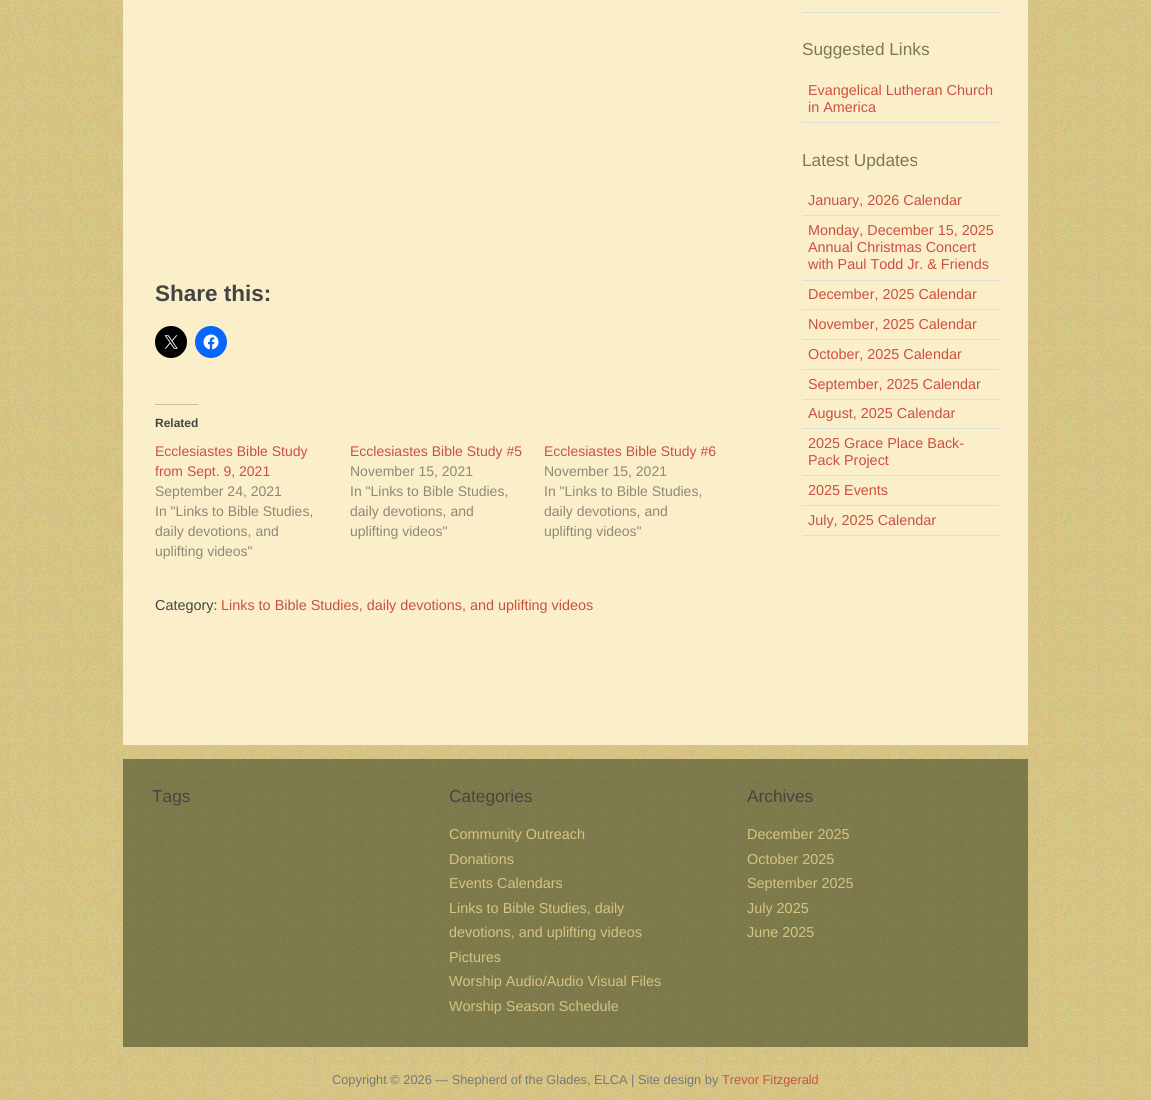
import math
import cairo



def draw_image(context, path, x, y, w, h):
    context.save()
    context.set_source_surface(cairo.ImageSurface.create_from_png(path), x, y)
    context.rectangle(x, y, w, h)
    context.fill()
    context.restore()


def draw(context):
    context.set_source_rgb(1, 1, 1)
    context.paint()
    draw_image(context, "images/1.png", 0, 0, 1151, 1100)
    context.set_source_rgb(250 / 255, 239 / 255, 200 / 255)
    context.rectangle(123, 0, 905, 745)
    context.fill()
    context.set_source_rgb(0, 0, 0)
    context.arc(171, 342, 16, 0, 2 * math.pi)
    context.fill()
    draw_image(context, "images/2.png", 164, 335, 14, 14)
    context.set_source_rgb(8 / 255, 102 / 255, 1)
    context.arc(211, 342, 16, 0, 2 * math.pi)
    context.fill()
    draw_image(context, "images/3.png", 203, 334, 16, 16)
    context.set_source_rgb(200 / 255, 191 / 255, 160 / 255)
    context.rectangle(155, 404, 43, 1)
    context.fill()
    context.set_source_rgb(221 / 255, 221 / 255, 221 / 255)
    context.rectangle(802, 12, 197, 1)
    context.fill()
    context.rectangle(802, 122, 197, 1)
    context.fill()
    context.rectangle(802, 215, 197, 1)
    context.fill()
    context.rectangle(802, 280, 197, 1)
    context.fill()
    context.rectangle(802, 309, 197, 1)
    context.fill()
    context.rectangle(802, 339, 197, 1)
    context.fill()
    context.rectangle(802, 369, 197, 1)
    context.fill()
    context.rectangle(802, 399, 197, 1)
    context.fill()
    context.rectangle(802, 428, 197, 1)
    context.fill()
    context.rectangle(802, 475, 197, 1)
    context.fill()
    context.rectangle(802, 505, 197, 1)
    context.fill()
    context.rectangle(802, 535, 197, 1)
    context.fill()
    draw_image(context, "images/4.png", 123, 759, 905, 288)
    context.select_font_face("Liberation Sans", cairo.FontSlant.NORMAL, cairo.FontWeight.BOLD)
    context.set_font_size(22.5)
    context.set_source_rgb(68 / 255, 68 / 255, 68 / 255)
    context.move_to(155, 301)
    context.show_text("Share this:")
    context.set_font_size(12)
    context.move_to(155, 427)
    context.show_text("Related")
    context.select_font_face("Liberation Sans")
    context.set_font_size(14)
    context.set_source_rgb(204 / 255, 80 / 255, 66 / 255)
    context.move_to(155, 456)
    context.show_text("Ecclesiastes Bible Study")
    context.move_to(155, 476)
    context.show_text("from Sept. 9, 2021")
    context.set_source_rgb(141 / 255, 136 / 255, 121 / 255)
    context.move_to(155, 496)
    context.show_text("September 24, 2021")
    context.move_to(155, 516)
    context.show_text("In \"Links to Bible Studies,")
    context.move_to(155, 536)
    context.show_text("daily devotions, and")
    context.move_to(155, 556)
    context.show_text("uplifting videos\"")
    context.set_source_rgb(204 / 255, 80 / 255, 66 / 255)
    context.move_to(350, 456)
    context.show_text("Ecclesiastes Bible Study #5")
    context.set_source_rgb(141 / 255, 136 / 255, 121 / 255)
    context.move_to(350, 476)
    context.show_text("November 15, 2021")
    context.move_to(350, 496)
    context.show_text("In \"Links to Bible Studies,")
    context.move_to(350, 516)
    context.show_text("daily devotions, and")
    context.move_to(350, 536)
    context.show_text("uplifting videos\"")
    context.set_source_rgb(204 / 255, 80 / 255, 66 / 255)
    context.move_to(544, 456)
    context.show_text("Ecclesiastes Bible Study #6")
    context.set_source_rgb(141 / 255, 136 / 255, 121 / 255)
    context.move_to(544, 476)
    context.show_text("November 15, 2021")
    context.move_to(544, 496)
    context.show_text("In \"Links to Bible Studies,")
    context.move_to(544, 516)
    context.show_text("daily devotions, and")
    context.move_to(544, 536)
    context.show_text("uplifting videos\"")
    context.set_font_size(14.4)
    context.set_source_rgb(68 / 255, 68 / 255, 68 / 255)
    context.move_to(155, 610)
    context.show_text("Category:")
    context.set_source_rgb(204 / 255, 80 / 255, 66 / 255)
    context.move_to(221, 610)
    context.show_text("Links to Bible Studies, daily devotions, and uplifting videos")
    context.set_font_size(17.25)
    context.set_source_rgb(125 / 255, 122 / 255, 76 / 255)
    context.move_to(802, 55)
    context.show_text("Suggested Links")
    context.set_font_size(14.4)
    context.set_source_rgb(204 / 255, 80 / 255, 66 / 255)
    context.move_to(808, 95)
    context.show_text("Evangelical Lutheran Church")
    context.move_to(808, 112)
    context.show_text("in America")
    context.set_font_size(17.25)
    context.set_source_rgb(125 / 255, 122 / 255, 76 / 255)
    context.move_to(802, 166)
    context.show_text("Latest Updates")
    context.set_font_size(14.4)
    context.set_source_rgb(204 / 255, 80 / 255, 66 / 255)
    context.move_to(808, 205)
    context.show_text("January, 2026 Calendar")
    context.move_to(808, 235)
    context.show_text("Monday, December 15, 2025")
    context.move_to(808, 252)
    context.show_text("Annual Christmas Concert")
    context.move_to(808, 269)
    context.show_text("with Paul Todd Jr. & Friends")
    context.move_to(808, 299)
    context.show_text("December, 2025 Calendar")
    context.move_to(808, 329)
    context.show_text("November, 2025 Calendar")
    context.move_to(808, 359)
    context.show_text("October, 2025 Calendar")
    context.move_to(808, 389)
    context.show_text("September, 2025 Calendar")
    context.move_to(808, 418)
    context.show_text("August, 2025 Calendar")
    context.move_to(808, 448)
    context.show_text("2025 Grace Place Back-")
    context.move_to(808, 465)
    context.show_text("Pack Project")
    context.move_to(808, 495)
    context.show_text("2025 Events")
    context.move_to(808, 525)
    context.show_text("July, 2025 Calendar")
    context.set_font_size(17.25)
    context.set_source_rgb(68 / 255, 68 / 255, 68 / 255)
    context.move_to(152, 802)
    context.show_text("Tags")
    context.move_to(449, 802)
    context.show_text("Categories")
    context.set_font_size(14.4)
    context.set_source_rgb(214 / 255, 196 / 255, 132 / 255)
    context.move_to(449, 839)
    context.show_text("Community Outreach")
    context.move_to(449, 864)
    context.show_text("Donations")
    context.move_to(449, 888)
    context.show_text("Events Calendars")
    context.move_to(449, 913)
    context.show_text("Links to Bible Studies, daily")
    context.move_to(449, 937)
    context.show_text("devotions, and uplifting videos")
    context.move_to(449, 962)
    context.show_text("Pictures")
    context.move_to(449, 986)
    context.show_text("Worship Audio/Audio Visual Files")
    context.move_to(449, 1011)
    context.show_text("Worship Season Schedule")
    context.set_font_size(17.25)
    context.set_source_rgb(68 / 255, 68 / 255, 68 / 255)
    context.move_to(747, 802)
    context.show_text("Archives")
    context.set_font_size(14.4)
    context.set_source_rgb(214 / 255, 196 / 255, 132 / 255)
    context.move_to(747, 839)
    context.show_text("December 2025")
    context.move_to(747, 864)
    context.show_text("October 2025")
    context.move_to(747, 888)
    context.show_text("September 2025")
    context.move_to(747, 913)
    context.show_text("July 2025")
    context.move_to(747, 937)
    context.show_text("June 2025")
    context.set_font_size(12.8)
    context.set_source_rgb(119 / 255, 119 / 255, 119 / 255)
    context.move_to(332, 1084)
    context.show_text("Copyright © 2026 — Shepherd of the Glades, ELCA | Site design by")
    context.set_source_rgb(204 / 255, 80 / 255, 66 / 255)
    context.move_to(722, 1084)
    context.show_text("Trevor Fitzgerald")


surface = cairo.ImageSurface(cairo.Format.RGB24, 1151, 1100)
context = cairo.Context(surface)
options = cairo.FontOptions()
options.set_hint_metrics(cairo.HintMetrics.OFF)
options.set_hint_style(cairo.HintStyle.NONE)
context.set_font_options(options)
context.set_miter_limit(4)
draw(context)
surface.write_to_png("out.png")
